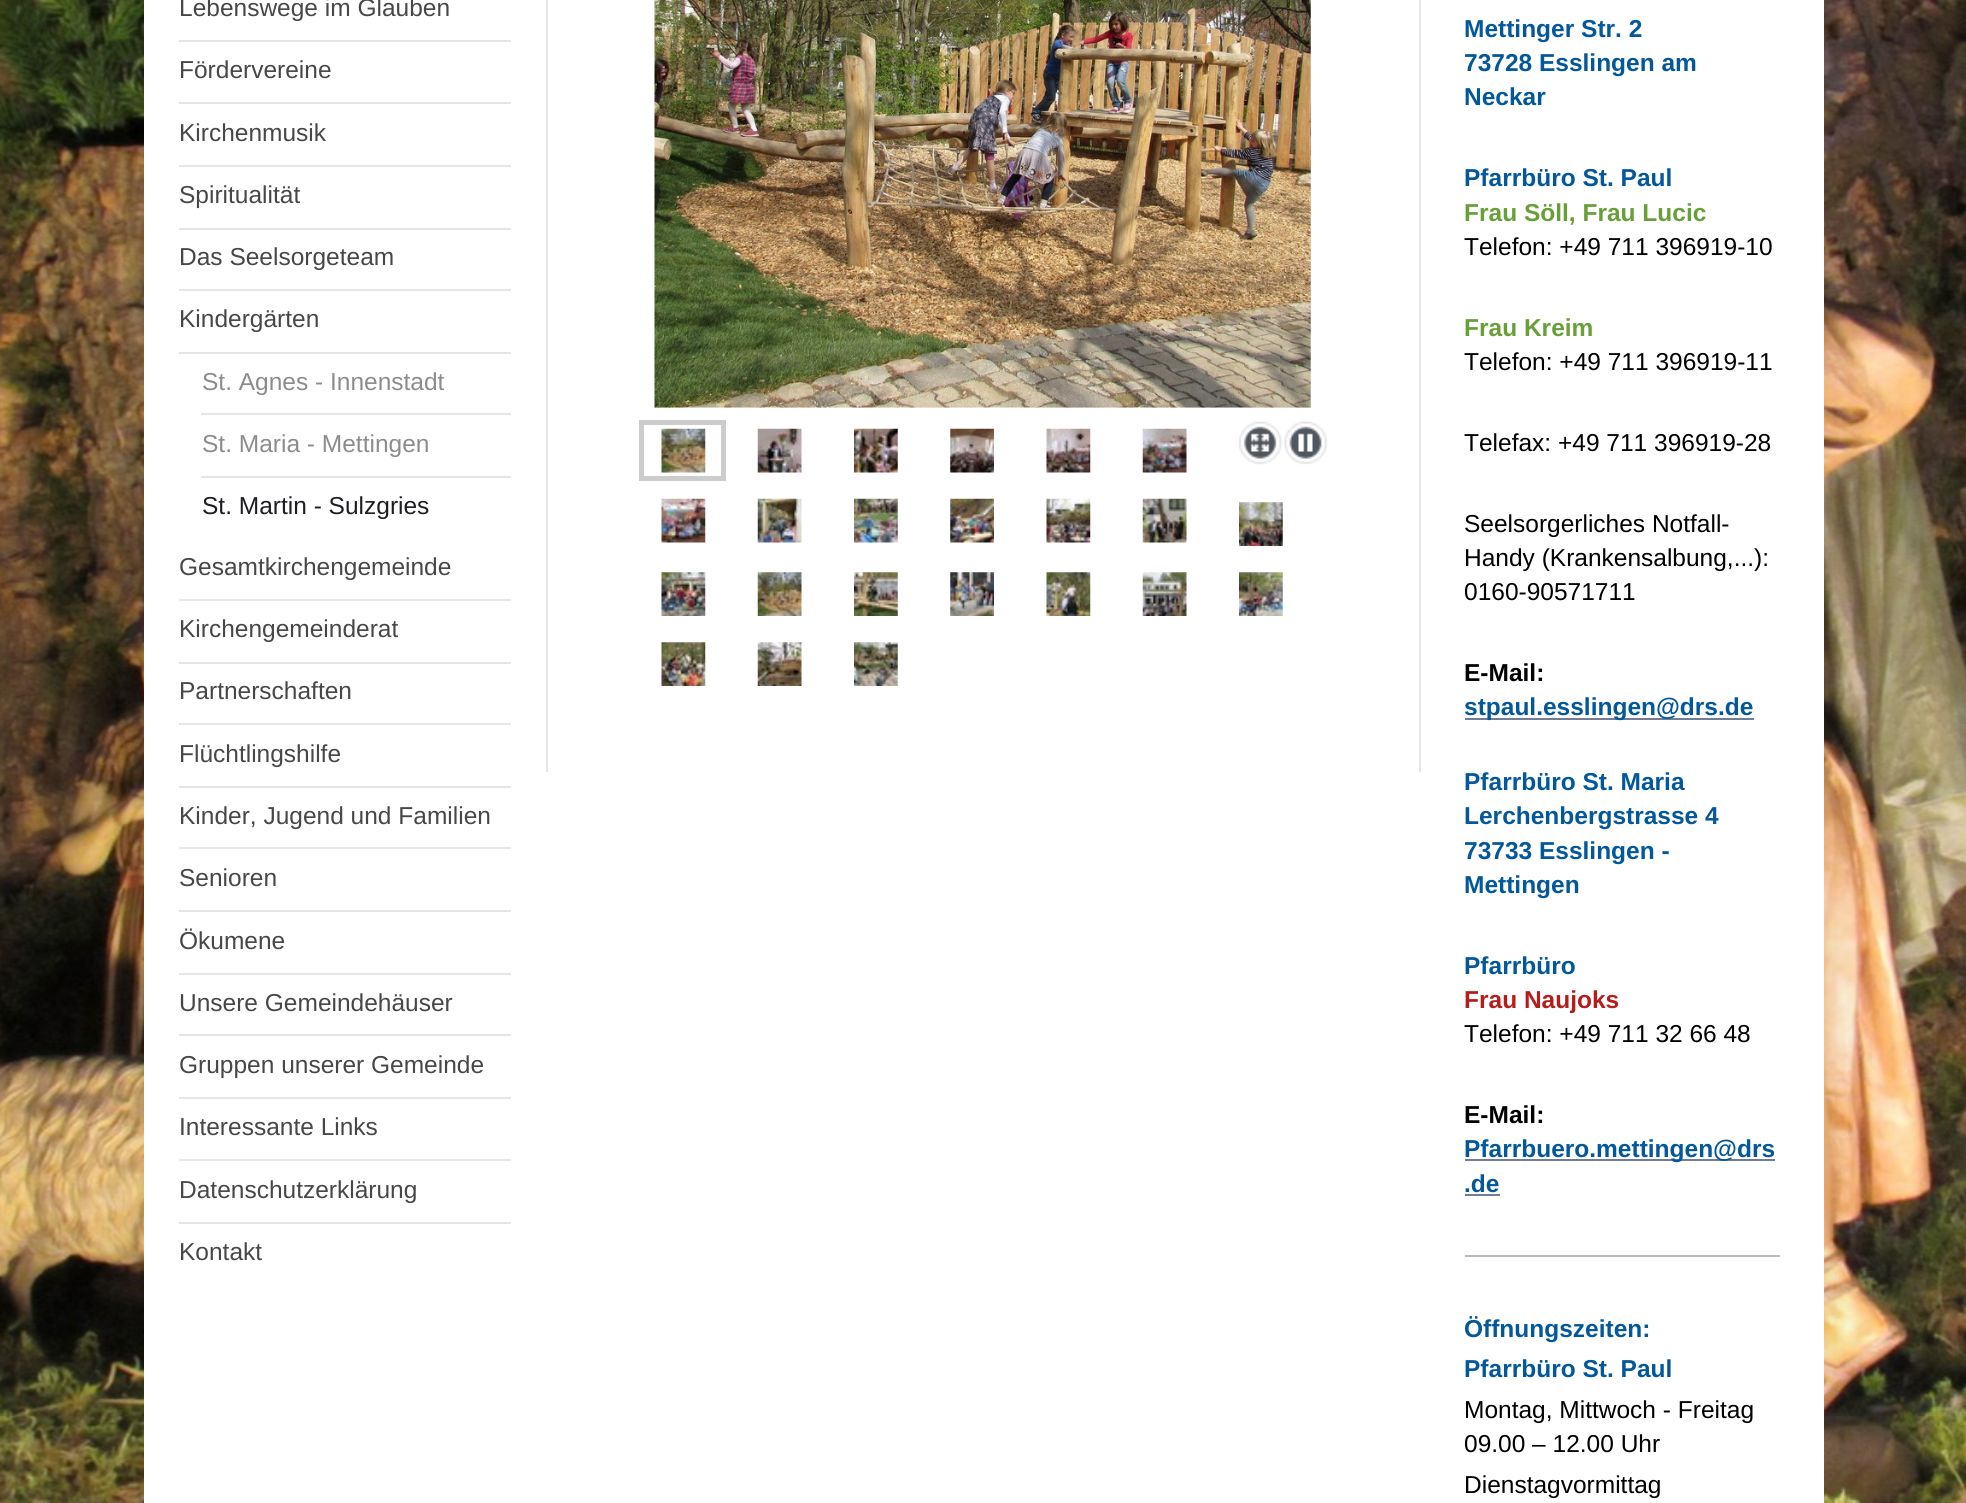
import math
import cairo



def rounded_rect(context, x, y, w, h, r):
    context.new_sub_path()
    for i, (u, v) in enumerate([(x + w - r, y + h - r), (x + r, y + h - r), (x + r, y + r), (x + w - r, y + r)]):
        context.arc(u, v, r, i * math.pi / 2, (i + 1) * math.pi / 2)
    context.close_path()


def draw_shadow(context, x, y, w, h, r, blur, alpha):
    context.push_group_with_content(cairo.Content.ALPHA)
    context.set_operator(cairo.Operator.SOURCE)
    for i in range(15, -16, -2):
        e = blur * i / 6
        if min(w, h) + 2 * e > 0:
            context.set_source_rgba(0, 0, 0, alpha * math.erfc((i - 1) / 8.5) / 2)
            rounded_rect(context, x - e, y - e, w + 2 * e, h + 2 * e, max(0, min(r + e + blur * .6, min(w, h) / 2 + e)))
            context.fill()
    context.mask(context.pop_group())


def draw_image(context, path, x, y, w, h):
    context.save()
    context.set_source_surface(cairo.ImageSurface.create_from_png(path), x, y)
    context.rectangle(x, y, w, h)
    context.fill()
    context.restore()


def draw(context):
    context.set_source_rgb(1, 1, 1)
    context.paint()
    draw_image(context, "images/1.png", 0, 0, 1966, 1503)
    context.set_source_rgb(0, 0, 0)
    draw_shadow(context, 144, -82, 1680, 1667, 4, 26, 0.1)
    context.set_source_rgb(1, 1, 1)
    context.rectangle(144, 0, 1680, 1503)
    context.fill()
    context.set_source_rgb(230 / 255, 230 / 255, 230 / 255)
    context.rectangle(179, 40, 332, 2)
    context.fill()
    context.rectangle(179, 102, 332, 2)
    context.fill()
    context.rectangle(179, 165, 332, 2)
    context.fill()
    context.rectangle(179, 228, 332, 2)
    context.fill()
    context.rectangle(179, 289, 332, 2)
    context.fill()
    context.rectangle(179, 352, 332, 2)
    context.fill()
    context.rectangle(201, 413, 310, 2)
    context.fill()
    context.rectangle(201, 476, 310, 2)
    context.fill()
    context.rectangle(179, 599, 332, 2)
    context.fill()
    context.rectangle(179, 662, 332, 2)
    context.fill()
    context.rectangle(179, 723, 332, 2)
    context.fill()
    context.rectangle(179, 786, 332, 2)
    context.fill()
    context.rectangle(179, 847, 332, 2)
    context.fill()
    context.rectangle(179, 910, 332, 2)
    context.fill()
    context.rectangle(179, 973, 332, 2)
    context.fill()
    context.rectangle(179, 1034, 332, 2)
    context.fill()
    context.rectangle(179, 1097, 332, 2)
    context.fill()
    context.rectangle(179, 1159, 332, 2)
    context.fill()
    context.rectangle(179, 1222, 332, 2)
    context.fill()
    context.rectangle(1419, 0, 2, 772)
    context.fill()
    context.rectangle(546, 0, 2, 772)
    context.fill()
    draw_image(context, "images/2.png", 654, 0, 657, 408)
    context.rectangle(641.5, 422.5, 82, 56)
    context.set_source_rgb(204 / 255, 204 / 255, 204 / 255)
    context.set_line_width(5)
    context.stroke()
    draw_image(context, "images/3.png", 661, 428, 45, 45)
    draw_image(context, "images/4.png", 757, 428, 45, 45)
    draw_image(context, "images/5.png", 854, 428, 44, 45)
    draw_image(context, "images/6.png", 950, 428, 44, 45)
    draw_image(context, "images/7.png", 1046, 428, 45, 45)
    draw_image(context, "images/8.png", 1142, 428, 45, 45)
    draw_image(context, "images/9.png", 1238, 421, 45, 44)
    draw_image(context, "images/10.png", 1284, 421, 44, 44)
    draw_image(context, "images/11.png", 661, 498, 45, 45)
    draw_image(context, "images/12.png", 757, 498, 45, 45)
    draw_image(context, "images/13.png", 854, 498, 44, 45)
    draw_image(context, "images/14.png", 950, 498, 44, 45)
    draw_image(context, "images/15.png", 1046, 498, 45, 45)
    draw_image(context, "images/16.png", 1142, 498, 45, 45)
    draw_image(context, "images/17.png", 1239, 502, 44, 44)
    draw_image(context, "images/18.png", 661, 572, 45, 44)
    draw_image(context, "images/19.png", 757, 572, 45, 44)
    draw_image(context, "images/20.png", 854, 572, 44, 44)
    draw_image(context, "images/21.png", 950, 572, 44, 44)
    draw_image(context, "images/22.png", 1046, 572, 45, 44)
    draw_image(context, "images/23.png", 1142, 572, 45, 44)
    draw_image(context, "images/24.png", 1239, 572, 44, 44)
    draw_image(context, "images/25.png", 661, 642, 45, 44)
    draw_image(context, "images/26.png", 757, 642, 45, 44)
    draw_image(context, "images/27.png", 854, 642, 44, 44)
    context.set_source_rgb(113 / 255, 125 / 255, 151 / 255)
    context.rectangle(1465, 718, 289, 2)
    context.fill()
    context.rectangle(1465, 1159, 310, 2)
    context.fill()
    context.rectangle(1465, 1194, 35, 2)
    context.fill()
    context.set_source_rgb(186 / 255, 186 / 255, 186 / 255)
    context.rectangle(1465, 1255, 315, 2)
    context.fill()
    context.select_font_face("Liberation Sans")
    context.set_font_size(24.5)
    context.set_source_rgb(71 / 255, 71 / 255, 71 / 255)
    context.move_to(179, 16)
    context.show_text("Lebenswege im Glauben")
    context.move_to(179, 78)
    context.show_text("Fördervereine")
    context.move_to(179, 141)
    context.show_text("Kirchenmusik")
    context.move_to(179, 203)
    context.show_text("Spiritualität")
    context.move_to(179, 265)
    context.show_text("Das Seelsorgeteam")
    context.move_to(179, 327)
    context.show_text("Kindergärten")
    context.set_source_rgb(140 / 255, 140 / 255, 140 / 255)
    context.move_to(202, 390)
    context.show_text("St. Agnes - Innenstadt")
    context.move_to(202, 452)
    context.show_text("St. Maria - Mettingen")
    context.set_source_rgb(30 / 255, 30 / 255, 34 / 255)
    context.move_to(202, 514)
    context.show_text("St. Martin - Sulzgries")
    context.set_source_rgb(71 / 255, 71 / 255, 71 / 255)
    context.move_to(179, 575)
    context.show_text("Gesamtkirchengemeinde")
    context.move_to(179, 637)
    context.show_text("Kirchengemeinderat")
    context.move_to(179, 699)
    context.show_text("Partnerschaften")
    context.move_to(179, 762)
    context.show_text("Flüchtlingshilfe")
    context.move_to(179, 824)
    context.show_text("Kinder, Jugend und Familien")
    context.move_to(179, 886)
    context.show_text("Senioren")
    context.move_to(179, 949)
    context.show_text("Ökumene")
    context.move_to(179, 1011)
    context.show_text("Unsere Gemeindehäuser")
    context.move_to(179, 1073)
    context.show_text("Gruppen unserer Gemeinde")
    context.move_to(179, 1135)
    context.show_text("Interessante Links")
    context.move_to(179, 1198)
    context.show_text("Datenschutzerklärung")
    context.move_to(179, 1260)
    context.show_text("Kontakt")
    context.select_font_face("Liberation Sans", cairo.FontSlant.NORMAL, cairo.FontWeight.BOLD)
    context.set_source_rgb(3 / 255, 87 / 255, 155 / 255)
    context.move_to(1464, 37)
    context.show_text("Mettinger Str. 2")
    context.move_to(1464, 71)
    context.show_text("73728 Esslingen am")
    context.move_to(1464, 105)
    context.show_text("Neckar")
    context.move_to(1464, 186)
    context.show_text("Pfarrbüro St. Paul")
    context.set_source_rgb(104 / 255, 159 / 255, 56 / 255)
    context.move_to(1464, 221)
    context.show_text("Frau Söll, Frau Lucic")
    context.select_font_face("Liberation Sans")
    context.set_source_rgb(0, 0, 0)
    context.move_to(1464, 255)
    context.show_text("Telefon: +49 711 396919-10")
    context.select_font_face("Liberation Sans", cairo.FontSlant.NORMAL, cairo.FontWeight.BOLD)
    context.set_source_rgb(104 / 255, 159 / 255, 56 / 255)
    context.move_to(1464, 336)
    context.show_text("Frau Kreim")
    context.select_font_face("Liberation Sans")
    context.set_source_rgb(0, 0, 0)
    context.move_to(1464, 370)
    context.show_text("Telefon: +49 711 396919-11")
    context.move_to(1464, 451)
    context.show_text("Telefax: +49 711 396919-28")
    context.move_to(1464, 532)
    context.show_text("Seelsorgerliches Notfall-")
    context.move_to(1464, 566)
    context.show_text("Handy (Krankensalbung,...):")
    context.move_to(1464, 600)
    context.show_text("0160-90571711")
    context.select_font_face("Liberation Sans", cairo.FontSlant.NORMAL, cairo.FontWeight.BOLD)
    context.move_to(1464, 681)
    context.show_text("E-Mail:")
    context.set_source_rgb(3 / 255, 87 / 255, 155 / 255)
    context.move_to(1464, 715)
    context.show_text("stpaul.esslingen@drs.de")
    context.move_to(1464, 790)
    context.show_text("Pfarrbüro St. Maria")
    context.move_to(1464, 824)
    context.show_text("Lerchenbergstrasse 4")
    context.move_to(1464, 859)
    context.show_text("73733 Esslingen -")
    context.move_to(1464, 893)
    context.show_text("Mettingen")
    context.move_to(1464, 974)
    context.show_text("Pfarrbüro")
    context.set_source_rgb(183 / 255, 28 / 255, 28 / 255)
    context.move_to(1464, 1008)
    context.show_text("Frau Naujoks")
    context.select_font_face("Liberation Sans")
    context.set_source_rgb(0, 0, 0)
    context.move_to(1464, 1042)
    context.show_text("Telefon: +49 711 32 66 48")
    context.select_font_face("Liberation Sans", cairo.FontSlant.NORMAL, cairo.FontWeight.BOLD)
    context.move_to(1464, 1123)
    context.show_text("E-Mail:")
    context.set_source_rgb(3 / 255, 87 / 255, 155 / 255)
    context.move_to(1464, 1157)
    context.show_text("Pfarrbuero.mettingen@drs")
    context.move_to(1464, 1192)
    context.show_text(".de")
    context.move_to(1464, 1337)
    context.show_text("Öffnungszeiten:")
    context.move_to(1464, 1377)
    context.show_text("Pfarrbüro St. Paul")
    context.select_font_face("Liberation Sans")
    context.set_source_rgb(0, 0, 0)
    context.move_to(1464, 1418)
    context.show_text("Montag, Mittwoch - Freitag")
    context.move_to(1464, 1452)
    context.show_text("09.00 – 12.00 Uhr")
    context.move_to(1464, 1493)
    context.show_text("Dienstagvormittag")


surface = cairo.ImageSurface(cairo.Format.RGB24, 1966, 1503)
context = cairo.Context(surface)
options = cairo.FontOptions()
options.set_hint_metrics(cairo.HintMetrics.OFF)
options.set_hint_style(cairo.HintStyle.NONE)
context.set_font_options(options)
context.set_miter_limit(4)
draw(context)
surface.write_to_png("out.png")
